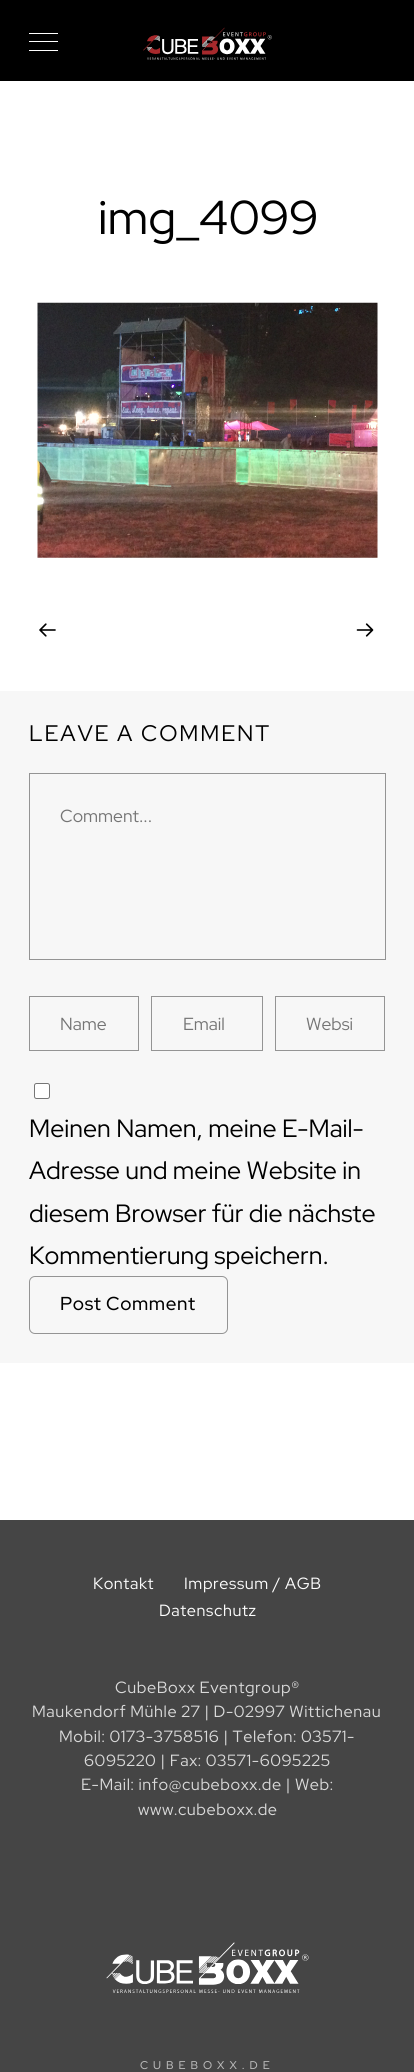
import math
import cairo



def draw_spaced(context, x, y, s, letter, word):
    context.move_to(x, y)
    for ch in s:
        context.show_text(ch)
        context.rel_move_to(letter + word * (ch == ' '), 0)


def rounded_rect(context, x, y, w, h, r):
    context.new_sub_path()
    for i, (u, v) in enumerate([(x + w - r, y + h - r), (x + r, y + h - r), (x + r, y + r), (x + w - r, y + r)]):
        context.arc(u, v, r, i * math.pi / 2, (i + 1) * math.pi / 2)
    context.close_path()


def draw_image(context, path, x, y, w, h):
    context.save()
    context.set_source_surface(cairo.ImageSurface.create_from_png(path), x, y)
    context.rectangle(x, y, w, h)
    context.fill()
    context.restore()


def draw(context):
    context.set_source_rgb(1, 1, 1)
    context.paint()
    context.set_source_rgb(0, 0, 0)
    context.rectangle(0, 0, 414, 81)
    context.fill()
    draw_image(context, "images/1.png", 143, 27, 129, 33)
    context.set_source_rgb(1, 1, 1)
    context.rectangle(29, 41, 29, 1)
    context.fill()
    context.rectangle(29, 33, 29, 1)
    context.fill()
    context.rectangle(29, 50, 29, 1)
    context.fill()
    draw_image(context, "images/2.png", 37, 302, 341, 256)
    draw_image(context, "images/3.png", 39, 623, 17, 14)
    draw_image(context, "images/4.png", 356, 623, 18, 14)
    context.set_source_rgb(247 / 255, 247 / 255, 247 / 255)
    context.rectangle(0, 691, 414, 672)
    context.fill()
    context.rectangle(29.5, 773.5, 356, 186)
    context.set_source_rgb(148 / 255, 148 / 255, 148 / 255)
    context.set_line_width(1)
    context.stroke()
    context.rectangle(29.5, 996.5, 109, 54)
    context.stroke()
    context.rectangle(151.5, 996.5, 111, 54)
    context.stroke()
    context.rectangle(275.5, 996.5, 109, 54)
    context.stroke()
    context.set_source_rgb(1, 1, 1)
    rounded_rect(context, 34.5, 1083.5, 15, 15, 2)
    context.fill_preserve()
    context.set_source_rgb(118 / 255, 118 / 255, 118 / 255)
    context.stroke()
    rounded_rect(context, 29.5, 1276.5, 198, 57, 5.5)
    context.set_source_rgb(148 / 255, 148 / 255, 148 / 255)
    context.stroke()
    context.set_source_rgb(69 / 255, 69 / 255, 69 / 255)
    context.rectangle(0, 1520, 414, 552)
    context.fill()
    draw_image(context, "images/5.png", 106, 1942, 203, 51)
    context.select_font_face("Red Hat Display")
    context.set_font_size(47.5)
    context.set_source_rgb(0, 0, 0)
    context.move_to(98, 234)
    context.show_text("img_4099")
    context.set_font_size(22.5)
    draw_spaced(context, 29, 741, "LEAVE A COMMENT", 1.9, 0)
    context.select_font_face("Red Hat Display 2")
    context.set_font_size(17.5)
    context.set_source_rgb(117 / 255, 117 / 255, 117 / 255)
    context.move_to(60, 822)
    context.show_text("Comment...")
    context.move_to(60, 1030)
    context.show_text("Name")
    context.move_to(183, 1030)
    context.show_text("Email")
    context.move_to(306, 1030)
    context.show_text("Websi")
    context.set_font_size(25)
    context.set_source_rgb(0, 0, 0)
    context.move_to(29, 1137)
    context.show_text("Meinen Namen, meine E-Mail-")
    context.move_to(29, 1179)
    context.show_text("Adresse und meine Website in")
    context.move_to(29, 1222)
    context.show_text("diesem Browser für die nächste")
    context.move_to(29, 1264)
    context.show_text("Kommentierung speichern.")
    context.select_font_face("Red Hat Display Medium")
    context.set_font_size(18.75)
    draw_spaced(context, 60, 1310, "Post Comment", 0.6, 0)
    context.select_font_face("Red Hat Display")
    context.set_font_size(16.25)
    context.set_source_rgb(1, 1, 1)
    draw_spaced(context, 93, 1589, "Kontakt", 0.6, 0)
    draw_spaced(context, 184, 1589, "Impressum / AGB", 0.6, 0)
    draw_spaced(context, 159, 1616, "Datenschutz", 0.6, 0)
    context.set_source_rgb(218 / 255, 218 / 255, 218 / 255)
    draw_spaced(context, 115, 1693, "CubeBoxx Eventgroup®", 0.6, 0)
    draw_spaced(context, 32, 1717, "Maukendorf Mühle 27 | D-02997 Wittichenau", 0.6, 0)
    draw_spaced(context, 59, 1742, "Mobil: 0173-3758516 | Telefon: 03571-", 0.6, 0)
    draw_spaced(context, 84, 1766, "6095220 | Fax: 03571-6095225", 0.6, 0)
    draw_spaced(context, 81, 1790, "E-Mail: info@cubeboxx.de | Web:", 0.6, 0)
    draw_spaced(context, 138, 1815, "www.cubeboxx.de", 0.6, 0)
    context.select_font_face("Red Hat Display Medium")
    context.set_font_size(11.25)
    context.set_source_rgb(184 / 255, 184 / 255, 184 / 255)
    draw_spaced(context, 140, 2069, "CUBEBOXX.DE", 5, 0)


surface = cairo.ImageSurface(cairo.Format.RGB24, 414, 2072)
context = cairo.Context(surface)
options = cairo.FontOptions()
options.set_hint_metrics(cairo.HintMetrics.OFF)
options.set_hint_style(cairo.HintStyle.NONE)
context.set_font_options(options)
context.set_miter_limit(4)
draw(context)
surface.write_to_png("out.png")
